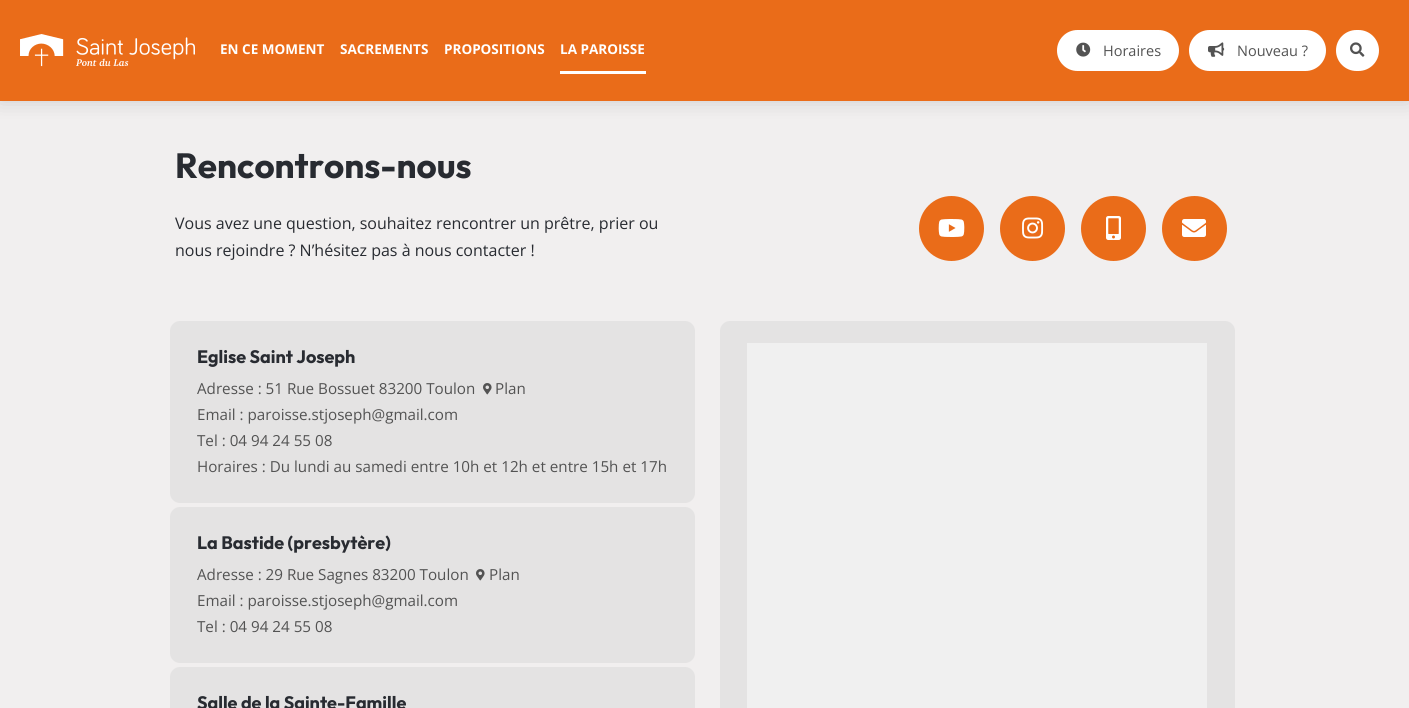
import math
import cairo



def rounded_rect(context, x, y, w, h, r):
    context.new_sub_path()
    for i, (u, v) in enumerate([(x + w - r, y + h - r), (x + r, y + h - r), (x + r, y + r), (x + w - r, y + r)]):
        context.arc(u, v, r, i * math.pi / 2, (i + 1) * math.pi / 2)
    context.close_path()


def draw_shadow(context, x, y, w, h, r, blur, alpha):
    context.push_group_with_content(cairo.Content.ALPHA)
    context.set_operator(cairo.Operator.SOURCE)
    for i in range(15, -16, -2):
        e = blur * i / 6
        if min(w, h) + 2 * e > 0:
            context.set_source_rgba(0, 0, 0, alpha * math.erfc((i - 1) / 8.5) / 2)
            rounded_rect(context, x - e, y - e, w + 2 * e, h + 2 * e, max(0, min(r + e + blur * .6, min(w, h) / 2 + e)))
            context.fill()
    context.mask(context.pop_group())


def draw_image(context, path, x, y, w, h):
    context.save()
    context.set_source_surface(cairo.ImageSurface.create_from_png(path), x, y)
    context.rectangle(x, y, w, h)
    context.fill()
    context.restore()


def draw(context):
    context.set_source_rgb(241 / 255, 239 / 255, 239 / 255)
    context.paint()
    context.set_source_rgb(0, 0, 0)
    draw_shadow(context, 0, 0, 1409, 101, 0, 10, 0.15)
    context.set_source_rgb(234 / 255, 108 / 255, 25 / 255)
    context.rectangle(0, 0, 1409, 101)
    context.fill()
    draw_image(context, "images/1.png", 20, 34, 175, 33)
    context.set_source_rgb(1, 1, 1)
    context.rectangle(560, 71, 86, 3)
    context.fill()
    rounded_rect(context, 1057, 30, 122, 41, 20.5)
    context.fill()
    draw_image(context, "images/2.png", 1076, 42, 15, 15)
    rounded_rect(context, 1189, 30, 137, 41, 20.5)
    context.fill()
    draw_image(context, "images/3.png", 1208, 42, 17, 15)
    rounded_rect(context, 1336, 30, 43, 41, 20.5)
    context.fill()
    draw_image(context, "images/4.png", 1350, 42, 15, 15)
    context.set_source_rgb(234 / 255, 108 / 255, 25 / 255)
    context.arc(951.5, 228.5, 32.5, 0, 2 * math.pi)
    context.fill()
    draw_image(context, "images/5.png", 938, 219, 27, 18)
    context.arc(1032.5, 228.5, 32.5, 0, 2 * math.pi)
    context.fill()
    draw_image(context, "images/6.png", 1022, 217, 22, 22)
    context.arc(1113.5, 228.5, 32.5, 0, 2 * math.pi)
    context.fill()
    draw_image(context, "images/7.png", 1106, 216, 15, 24)
    context.arc(1194.5, 228.5, 32.5, 0, 2 * math.pi)
    context.fill()
    draw_image(context, "images/8.png", 1182, 219, 24, 18)
    context.set_source_rgb(228 / 255, 227 / 255, 227 / 255)
    rounded_rect(context, 170, 321, 525, 182, 10)
    context.fill()
    draw_image(context, "images/9.png", 483, 383, 9, 12)
    rounded_rect(context, 170, 507, 525, 156, 10)
    context.fill()
    draw_image(context, "images/9.png", 476, 569, 9, 12)
    rounded_rect(context, 170, 667, 525, 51, 10)
    context.fill()
    rounded_rect(context, 720, 321, 515, 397, 10)
    context.fill()
    context.set_source_rgb(240 / 255, 240 / 255, 240 / 255)
    context.rectangle(747, 343, 460, 365)
    context.fill()
    context.select_font_face("Open Sans", cairo.FontSlant.NORMAL, cairo.FontWeight.BOLD)
    context.set_font_size(13.5)
    context.set_source_rgb(1, 1, 1)
    context.move_to(220, 54)
    context.show_text("EN CE MOMENT")
    context.move_to(340, 54)
    context.show_text("SACREMENTS")
    context.move_to(444, 54)
    context.show_text("PROPOSITIONS")
    context.move_to(560, 54)
    context.show_text("LA PAROISSE")
    context.select_font_face("Open Sans")
    context.set_font_size(14.5)
    context.set_source_rgb(83 / 255, 83 / 255, 83 / 255)
    context.move_to(1103, 56)
    context.show_text("Horaires")
    context.move_to(1237, 56)
    context.show_text("Nouveau ?")
    context.select_font_face("Outfit", cairo.FontSlant.NORMAL, cairo.FontWeight.BOLD)
    context.set_font_size(35)
    context.set_source_rgb(40 / 255, 43 / 255, 49 / 255)
    context.move_to(175, 178)
    context.show_text("Rencontrons-nous")
    context.select_font_face("Open Sans")
    context.set_font_size(16)
    context.move_to(175, 229)
    context.show_text("Vous avez une question, souhaitez rencontrer un prêtre, prier ou")
    context.move_to(175, 256)
    context.show_text("nous rejoindre ? N’hésitez pas à nous contacter !")
    context.select_font_face("Outfit", cairo.FontSlant.NORMAL, cairo.FontWeight.BOLD)
    context.set_font_size(18)
    context.move_to(197, 363)
    context.show_text("Eglise Saint Joseph")
    context.select_font_face("Open Sans")
    context.set_font_size(15.2)
    context.set_source_rgb(83 / 255, 83 / 255, 83 / 255)
    context.move_to(197, 394)
    context.show_text("Adresse : 51 Rue Bossuet 83200 Toulon")
    context.move_to(495, 394)
    context.show_text("Plan")
    context.move_to(197, 420)
    context.show_text("Email : paroisse.stjoseph@gmail.com")
    context.move_to(197, 446)
    context.show_text("Tel : 04 94 24 55 08")
    context.move_to(197, 472)
    context.show_text("Horaires : Du lundi au samedi entre 10h et 12h et entre 15h et 17h")
    context.select_font_face("Outfit", cairo.FontSlant.NORMAL, cairo.FontWeight.BOLD)
    context.set_font_size(18)
    context.set_source_rgb(40 / 255, 43 / 255, 49 / 255)
    context.move_to(197, 549)
    context.show_text("La Bastide (presbytère)")
    context.select_font_face("Open Sans")
    context.set_font_size(15.2)
    context.set_source_rgb(83 / 255, 83 / 255, 83 / 255)
    context.move_to(197, 580)
    context.show_text("Adresse : 29 Rue Sagnes 83200 Toulon")
    context.move_to(489, 580)
    context.show_text("Plan")
    context.move_to(197, 606)
    context.show_text("Email : paroisse.stjoseph@gmail.com")
    context.move_to(197, 632)
    context.show_text("Tel : 04 94 24 55 08")
    context.select_font_face("Outfit", cairo.FontSlant.NORMAL, cairo.FontWeight.BOLD)
    context.set_font_size(18)
    context.set_source_rgb(40 / 255, 43 / 255, 49 / 255)
    context.move_to(197, 709)
    context.show_text("Salle de la Sainte-Famille")


surface = cairo.ImageSurface(cairo.Format.RGB24, 1409, 708)
context = cairo.Context(surface)
options = cairo.FontOptions()
options.set_hint_metrics(cairo.HintMetrics.OFF)
options.set_hint_style(cairo.HintStyle.NONE)
context.set_font_options(options)
context.set_miter_limit(4)
draw(context)
surface.write_to_png("out.png")
